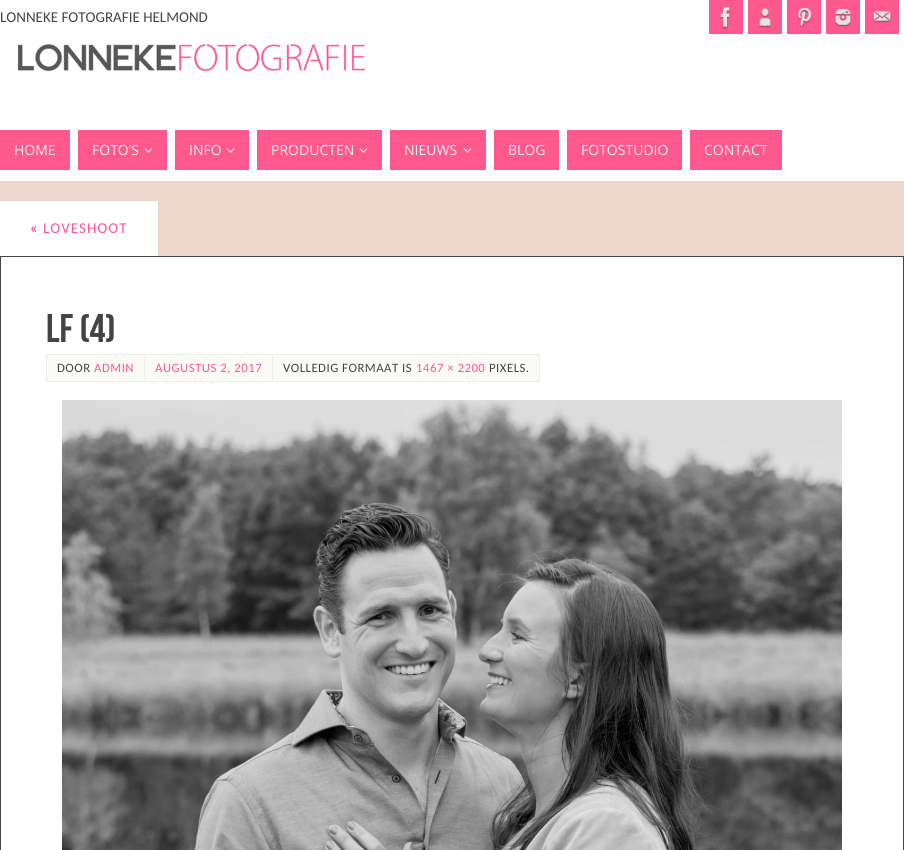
import math
import cairo



def draw_spaced(context, x, y, s, letter, word):
    context.move_to(x, y)
    for ch in s:
        context.show_text(ch)
        context.rel_move_to(letter + word * (ch == ' '), 0)


def draw_image(context, path, x, y, w, h):
    context.save()
    context.set_source_surface(cairo.ImageSurface.create_from_png(path), x, y)
    context.rectangle(x, y, w, h)
    context.fill()
    context.restore()


def draw(context):
    context.set_source_rgb(237 / 255, 213 / 255, 204 / 255)
    context.paint()
    context.set_source_rgb(1, 1, 1)
    context.rectangle(0, 0, 904, 181)
    context.fill()
    context.set_source_rgb(253 / 255, 89 / 255, 142 / 255)
    context.rectangle(709, 0, 34, 34)
    context.fill()
    draw_image(context, "images/1.png", 720, 7, 11, 22)
    context.rectangle(748, 0, 34, 34)
    context.fill()
    draw_image(context, "images/2.png", 758, 8, 14, 20)
    context.rectangle(787, 0, 34, 34)
    context.fill()
    draw_image(context, "images/3.png", 797, 8, 15, 20)
    context.rectangle(826, 0, 34, 34)
    context.fill()
    draw_image(context, "images/4.png", 834, 9, 18, 18)
    context.rectangle(865, 0, 34, 34)
    context.fill()
    draw_image(context, "images/5.png", 873, 11, 19, 12)
    draw_image(context, "images/6.png", 18, 44, 348, 28)
    context.rectangle(0, 130, 70, 40)
    context.fill()
    context.rectangle(78, 130, 89, 40)
    context.fill()
    draw_image(context, "images/7.png", 144, 148, 9, 5)
    context.rectangle(175, 130, 74, 40)
    context.fill()
    draw_image(context, "images/7.png", 226, 148, 9, 5)
    context.rectangle(257, 130, 125, 40)
    context.fill()
    draw_image(context, "images/7.png", 359, 148, 9, 5)
    context.rectangle(390, 130, 96, 40)
    context.fill()
    draw_image(context, "images/7.png", 463, 148, 9, 5)
    context.rectangle(494, 130, 65, 40)
    context.fill()
    context.rectangle(567, 130, 115, 40)
    context.fill()
    context.rectangle(690, 130, 92, 40)
    context.fill()
    context.set_source_rgb(1, 1, 1)
    context.rectangle(0, 201, 158, 55)
    context.fill()
    context.rectangle(0.5, 256.5, 903, 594)
    context.fill_preserve()
    context.set_source_rgb(68 / 255, 68 / 255, 68 / 255)
    context.set_line_width(1)
    context.stroke()
    context.set_source_rgb(250 / 255, 250 / 255, 247 / 255)
    context.rectangle(46.5, 354.5, 98, 27)
    context.fill_preserve()
    context.set_source_rgb(238 / 255, 238 / 255, 238 / 255)
    context.stroke()
    context.set_source_rgb(250 / 255, 250 / 255, 247 / 255)
    context.rectangle(144.5, 354.5, 128, 27)
    context.fill_preserve()
    context.set_source_rgb(238 / 255, 238 / 255, 238 / 255)
    context.stroke()
    context.set_source_rgb(250 / 255, 250 / 255, 247 / 255)
    context.rectangle(272.5, 354.5, 267, 27)
    context.fill_preserve()
    context.set_source_rgb(238 / 255, 238 / 255, 238 / 255)
    context.stroke()
    draw_image(context, "images/8.png", 62, 400, 780, 450)
    context.select_font_face("Carlito")
    context.set_font_size(15)
    context.set_source_rgb(68 / 255, 68 / 255, 68 / 255)
    context.move_to(0, 22)
    context.show_text("LONNEKE FOTOGRAFIE HELMOND")
    context.select_font_face("Open Sans")
    context.set_font_size(14)
    context.set_source_rgb(238 / 255, 238 / 255, 238 / 255)
    context.move_to(14, 155)
    context.show_text("HOME")
    context.move_to(92, 155)
    context.show_text("FOTO’S")
    context.move_to(189, 155)
    context.show_text("INFO")
    context.move_to(271, 155)
    context.show_text("PRODUCTEN")
    context.move_to(404, 155)
    context.show_text("NIEUWS")
    context.move_to(508, 155)
    context.show_text("BLOG")
    context.move_to(581, 155)
    context.show_text("FOTOSTUDIO")
    context.move_to(704, 155)
    context.show_text("CONTACT")
    context.select_font_face("Carlito", cairo.FontSlant.NORMAL, cairo.FontWeight.BOLD)
    context.set_font_size(15)
    context.set_source_rgb(253 / 255, 89 / 255, 142 / 255)
    draw_spaced(context, 30, 233, "«", 1, 0)
    context.select_font_face("Carlito")
    draw_spaced(context, 43, 233, "LOVESHOOT", 1, 0)
    context.select_font_face("Bebas Neue")
    context.set_font_size(40)
    context.set_source_rgb(68 / 255, 68 / 255, 68 / 255)
    context.move_to(46, 342)
    context.show_text("LF (4)")
    context.select_font_face("Carlito")
    context.set_font_size(12.75)
    draw_spaced(context, 57, 372, "DOOR", 0.5, 0)
    context.set_source_rgb(253 / 255, 89 / 255, 142 / 255)
    draw_spaced(context, 94, 372, "ADMIN", 0.5, 0)
    draw_spaced(context, 155, 372, "AUGUSTUS 2, 2017", 0.5, 0)
    context.set_source_rgb(68 / 255, 68 / 255, 68 / 255)
    draw_spaced(context, 283, 372, "VOLLEDIG FORMAAT IS", 0.5, 0)
    context.set_source_rgb(253 / 255, 89 / 255, 142 / 255)
    draw_spaced(context, 416, 372, "1467 × 2200", 0.5, 0)
    context.set_source_rgb(68 / 255, 68 / 255, 68 / 255)
    draw_spaced(context, 489, 372, "PIXELS.", 0.5, 0)


surface = cairo.ImageSurface(cairo.Format.RGB24, 904, 850)
context = cairo.Context(surface)
options = cairo.FontOptions()
options.set_hint_metrics(cairo.HintMetrics.OFF)
options.set_hint_style(cairo.HintStyle.NONE)
context.set_font_options(options)
context.set_miter_limit(4)
draw(context)
surface.write_to_png("out.png")
